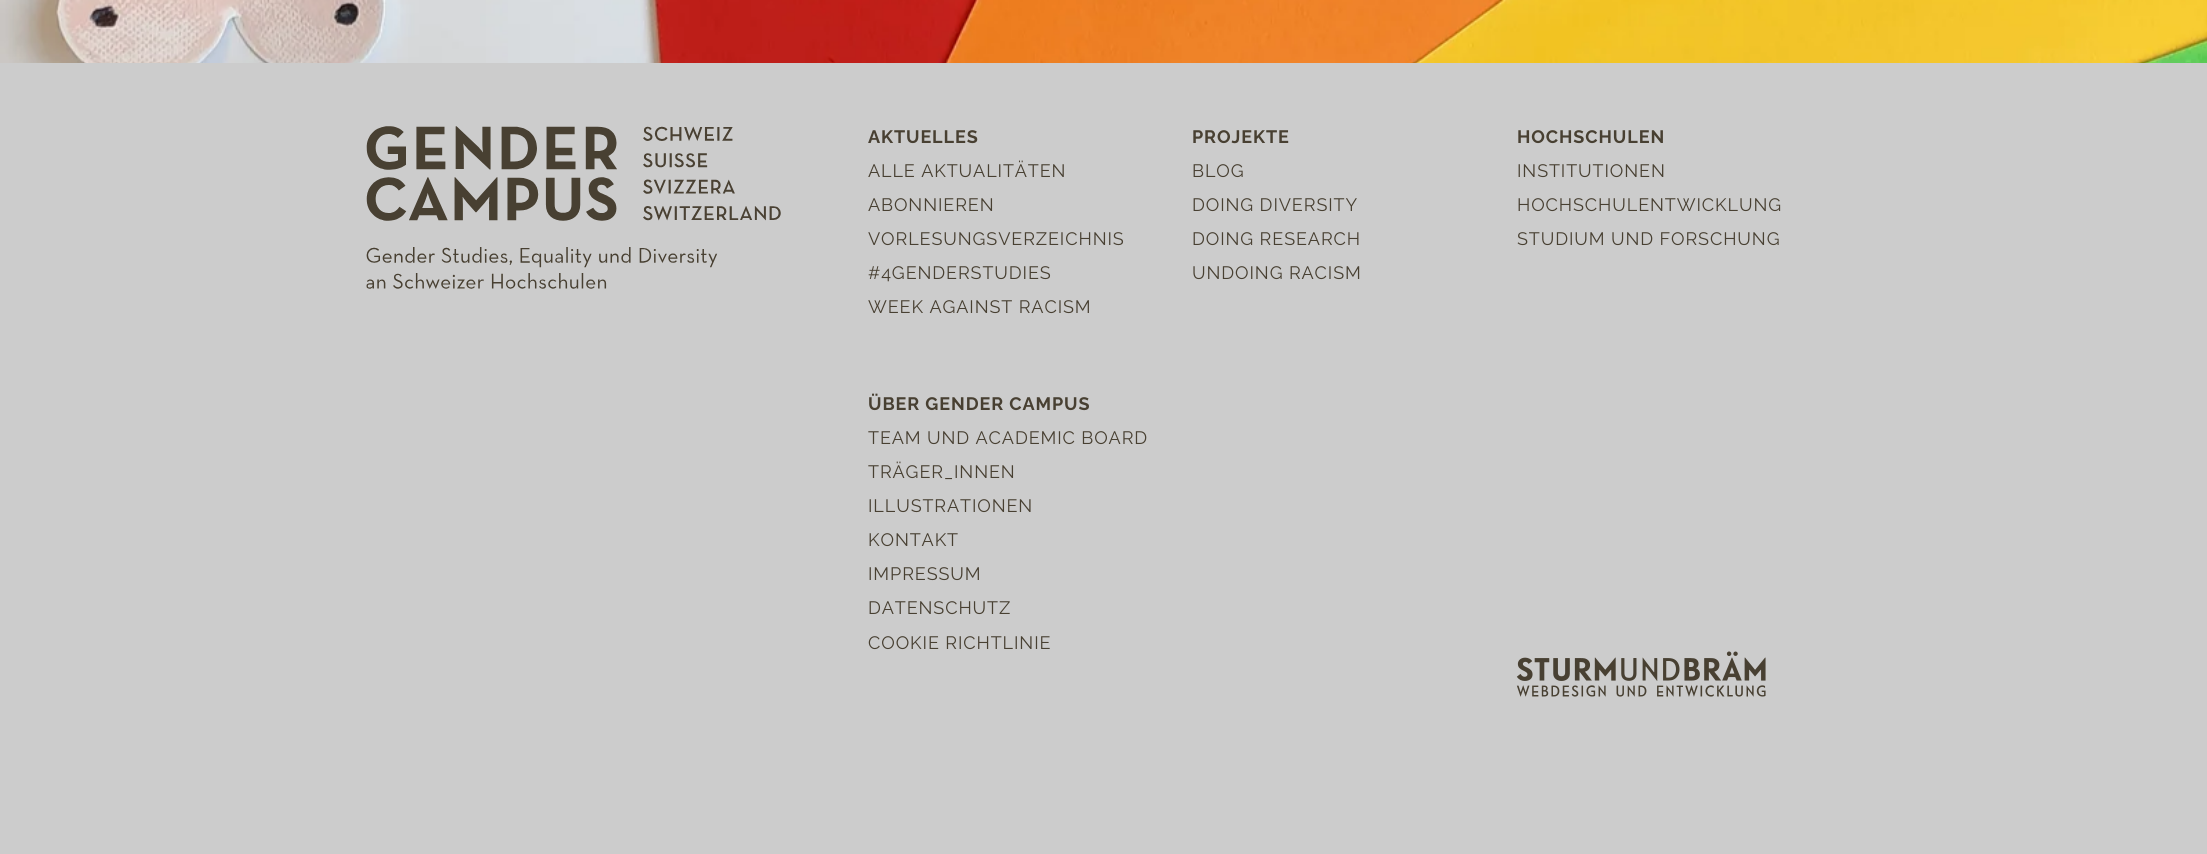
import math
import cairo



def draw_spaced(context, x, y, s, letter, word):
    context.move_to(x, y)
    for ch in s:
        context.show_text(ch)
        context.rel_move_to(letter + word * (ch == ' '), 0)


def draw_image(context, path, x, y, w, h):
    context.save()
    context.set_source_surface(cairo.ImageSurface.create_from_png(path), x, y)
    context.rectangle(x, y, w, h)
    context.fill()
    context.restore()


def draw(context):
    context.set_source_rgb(1, 1, 1)
    context.paint()
    draw_image(context, "images/1.png", 0, 0, 2207, 63)
    context.set_source_rgb(204 / 255, 204 / 255, 204 / 255)
    context.rectangle(0, 63, 2207, 791)
    context.fill()
    draw_image(context, "images/2.png", 366, 126, 415, 163)
    draw_image(context, "images/3.png", 1516, 651, 250, 46)
    context.select_font_face("Raleway Thin")
    context.set_font_size(18)
    context.set_source_rgb(72 / 255, 64 / 255, 50 / 255)
    draw_spaced(context, 868, 143, "AKTUELLES", 0.9, 0)
    context.select_font_face("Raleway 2 Thin")
    draw_spaced(context, 868, 177, "ALLE AKTUALITÄTEN", 0.9, 0)
    draw_spaced(context, 868, 211, "ABONNIEREN", 0.9, 0)
    draw_spaced(context, 868, 245, "VORLESUNGSVERZEICHNIS", 0.9, 0)
    draw_spaced(context, 868, 279, "#4GENDERSTUDIES", 0.9, 0)
    draw_spaced(context, 868, 313, "WEEK AGAINST RACISM", 0.9, 0)
    context.select_font_face("Raleway Thin")
    draw_spaced(context, 1192, 143, "PROJEKTE", 0.9, 0)
    context.select_font_face("Raleway 2 Thin")
    draw_spaced(context, 1192, 177, "BLOG", 0.9, 0)
    draw_spaced(context, 1192, 211, "DOING DIVERSITY", 0.9, 0)
    draw_spaced(context, 1192, 245, "DOING RESEARCH", 0.9, 0)
    draw_spaced(context, 1192, 279, "UNDOING RACISM", 0.9, 0)
    context.select_font_face("Raleway Thin")
    draw_spaced(context, 1517, 143, "HOCHSCHULEN", 0.9, 0)
    context.select_font_face("Raleway 2 Thin")
    draw_spaced(context, 1517, 177, "INSTITUTIONEN", 0.9, 0)
    draw_spaced(context, 1517, 211, "HOCHSCHULENTWICKLUNG", 0.9, 0)
    draw_spaced(context, 1517, 245, "STUDIUM UND FORSCHUNG", 0.9, 0)
    context.select_font_face("Raleway Thin")
    draw_spaced(context, 868, 410, "ÜBER GENDER CAMPUS", 0.9, 0)
    context.select_font_face("Raleway 2 Thin")
    draw_spaced(context, 868, 444, "TEAM UND ACADEMIC BOARD", 0.9, 0)
    draw_spaced(context, 868, 478, "TRÄGER_INNEN", 0.9, 0)
    draw_spaced(context, 868, 512, "ILLUSTRATIONEN", 0.9, 0)
    draw_spaced(context, 868, 546, "KONTAKT", 0.9, 0)
    draw_spaced(context, 868, 580, "IMPRESSUM", 0.9, 0)
    draw_spaced(context, 868, 614, "DATENSCHUTZ", 0.9, 0)
    draw_spaced(context, 868, 649, "COOKIE RICHTLINIE", 0.9, 0)


surface = cairo.ImageSurface(cairo.Format.RGB24, 2207, 854)
context = cairo.Context(surface)
options = cairo.FontOptions()
options.set_hint_metrics(cairo.HintMetrics.OFF)
options.set_hint_style(cairo.HintStyle.NONE)
context.set_font_options(options)
context.set_miter_limit(4)
draw(context)
surface.write_to_png("out.png")
